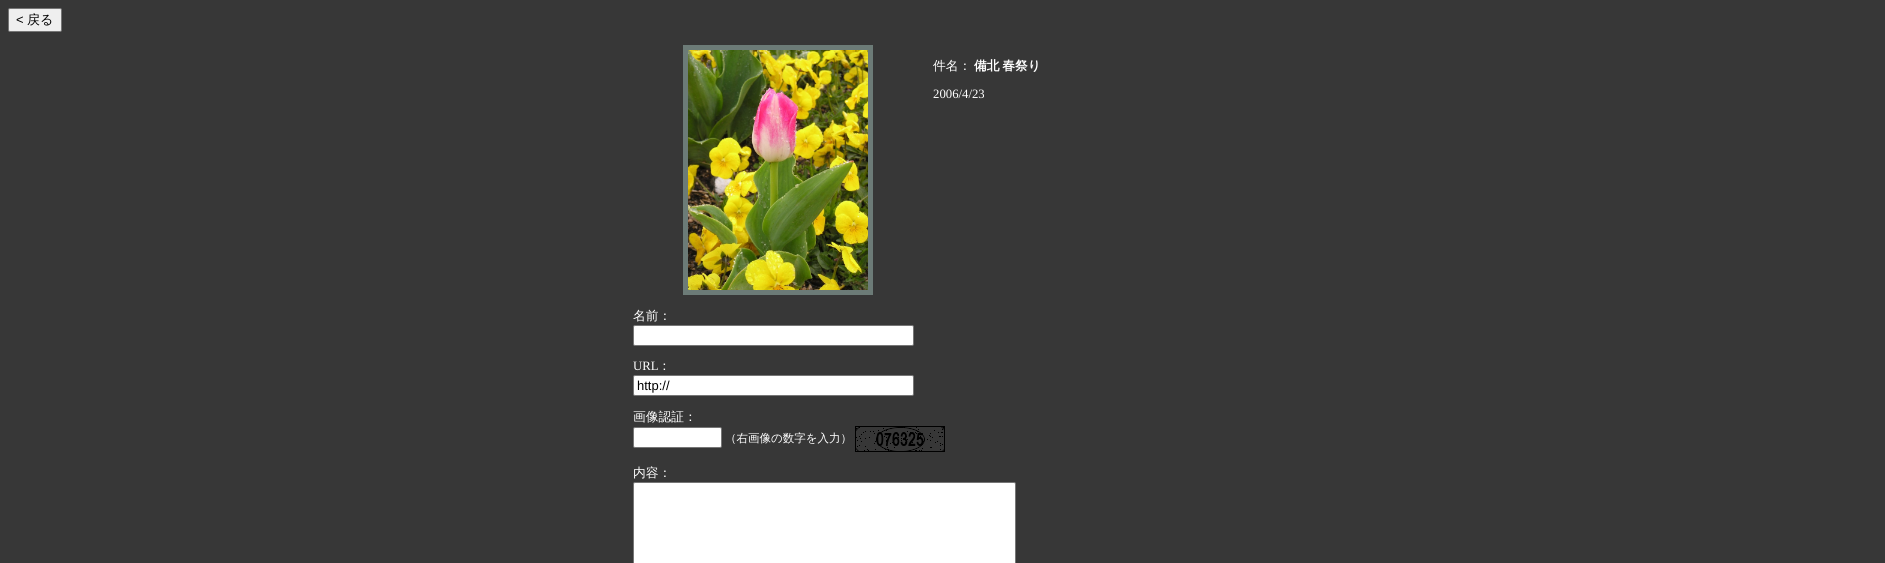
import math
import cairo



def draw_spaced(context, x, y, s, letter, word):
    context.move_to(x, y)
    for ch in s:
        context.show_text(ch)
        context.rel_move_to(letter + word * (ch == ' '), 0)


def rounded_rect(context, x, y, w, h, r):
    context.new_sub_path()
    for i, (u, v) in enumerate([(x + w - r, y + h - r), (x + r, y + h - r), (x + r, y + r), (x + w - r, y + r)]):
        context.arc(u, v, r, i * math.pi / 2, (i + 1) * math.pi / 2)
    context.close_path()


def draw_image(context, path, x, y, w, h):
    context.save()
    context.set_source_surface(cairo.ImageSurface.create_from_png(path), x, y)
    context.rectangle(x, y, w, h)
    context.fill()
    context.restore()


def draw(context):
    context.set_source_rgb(55 / 255, 55 / 255, 55 / 255)
    context.paint()
    context.set_source_rgb(239 / 255, 239 / 255, 239 / 255)
    rounded_rect(context, 8.5, 8.5, 53, 23, 1.5)
    context.fill_preserve()
    context.set_source_rgb(118 / 255, 118 / 255, 118 / 255)
    context.set_line_width(1)
    context.stroke()
    context.rectangle(685.5, 47.5, 185, 245)
    context.set_source_rgb(108 / 255, 123 / 255, 119 / 255)
    context.set_line_width(5)
    context.stroke()
    draw_image(context, "images/1.png", 688, 50, 180, 240)
    context.set_source_rgb(1, 1, 1)
    rounded_rect(context, 633.5, 325.5, 280, 20, 1.5)
    context.fill_preserve()
    context.set_source_rgb(118 / 255, 118 / 255, 118 / 255)
    context.set_line_width(1)
    context.stroke()
    context.set_source_rgb(1, 1, 1)
    rounded_rect(context, 633.5, 375.5, 280, 20, 1.5)
    context.fill_preserve()
    context.set_source_rgb(118 / 255, 118 / 255, 118 / 255)
    context.stroke()
    context.set_source_rgb(1, 1, 1)
    rounded_rect(context, 633.5, 427.5, 88, 20, 1.5)
    context.fill_preserve()
    context.set_source_rgb(118 / 255, 118 / 255, 118 / 255)
    context.stroke()
    draw_image(context, "images/2.png", 855, 426, 90, 26)
    context.set_source_rgb(1, 1, 1)
    rounded_rect(context, 633.5, 482.5, 382, 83, 1.5)
    context.fill_preserve()
    context.set_source_rgb(118 / 255, 118 / 255, 118 / 255)
    context.stroke()
    context.select_font_face("Liberation Sans")
    context.set_font_size(13)
    context.set_source_rgb(0, 0, 0)
    context.move_to(16, 24)
    context.show_text("<")
    context.select_font_face("WenQuanYi Zen Hei Medium")
    context.move_to(27, 24)
    context.show_text("戻る")
    context.set_font_size(12.75)
    context.set_source_rgb(1, 1, 1)
    context.move_to(933, 70)
    context.show_text("件名：")
    context.select_font_face("WenQuanYi Zen Hei", cairo.FontSlant.NORMAL, cairo.FontWeight.BOLD)
    draw_spaced(context, 974, 70, "備北 春祭り", 0, -1)
    context.select_font_face("Liberation Serif")
    context.move_to(933, 98)
    context.show_text("2006/4/23")
    context.select_font_face("WenQuanYi Zen Hei Medium")
    context.move_to(633, 320)
    context.show_text("名前：")
    context.select_font_face("Liberation Serif")
    context.move_to(633, 370)
    context.show_text("URL")
    context.select_font_face("WenQuanYi Zen Hei Medium")
    context.move_to(658, 370)
    context.show_text("：")
    context.select_font_face("Liberation Sans")
    context.set_font_size(13)
    context.set_source_rgb(0, 0, 0)
    context.move_to(637, 390)
    context.show_text("http://")
    context.select_font_face("WenQuanYi Zen Hei Medium")
    context.set_font_size(12.75)
    context.set_source_rgb(1, 1, 1)
    context.move_to(633, 421)
    context.show_text("画像認証：")
    context.set_font_size(11.5)
    context.move_to(725, 442)
    context.show_text("（右画像の数字を入力）")
    context.set_font_size(12.75)
    context.move_to(633, 477)
    context.show_text("内容：")


surface = cairo.ImageSurface(cairo.Format.RGB24, 1885, 563)
context = cairo.Context(surface)
options = cairo.FontOptions()
options.set_hint_metrics(cairo.HintMetrics.OFF)
options.set_hint_style(cairo.HintStyle.NONE)
context.set_font_options(options)
context.set_miter_limit(4)
draw(context)
surface.write_to_png("out.png")
